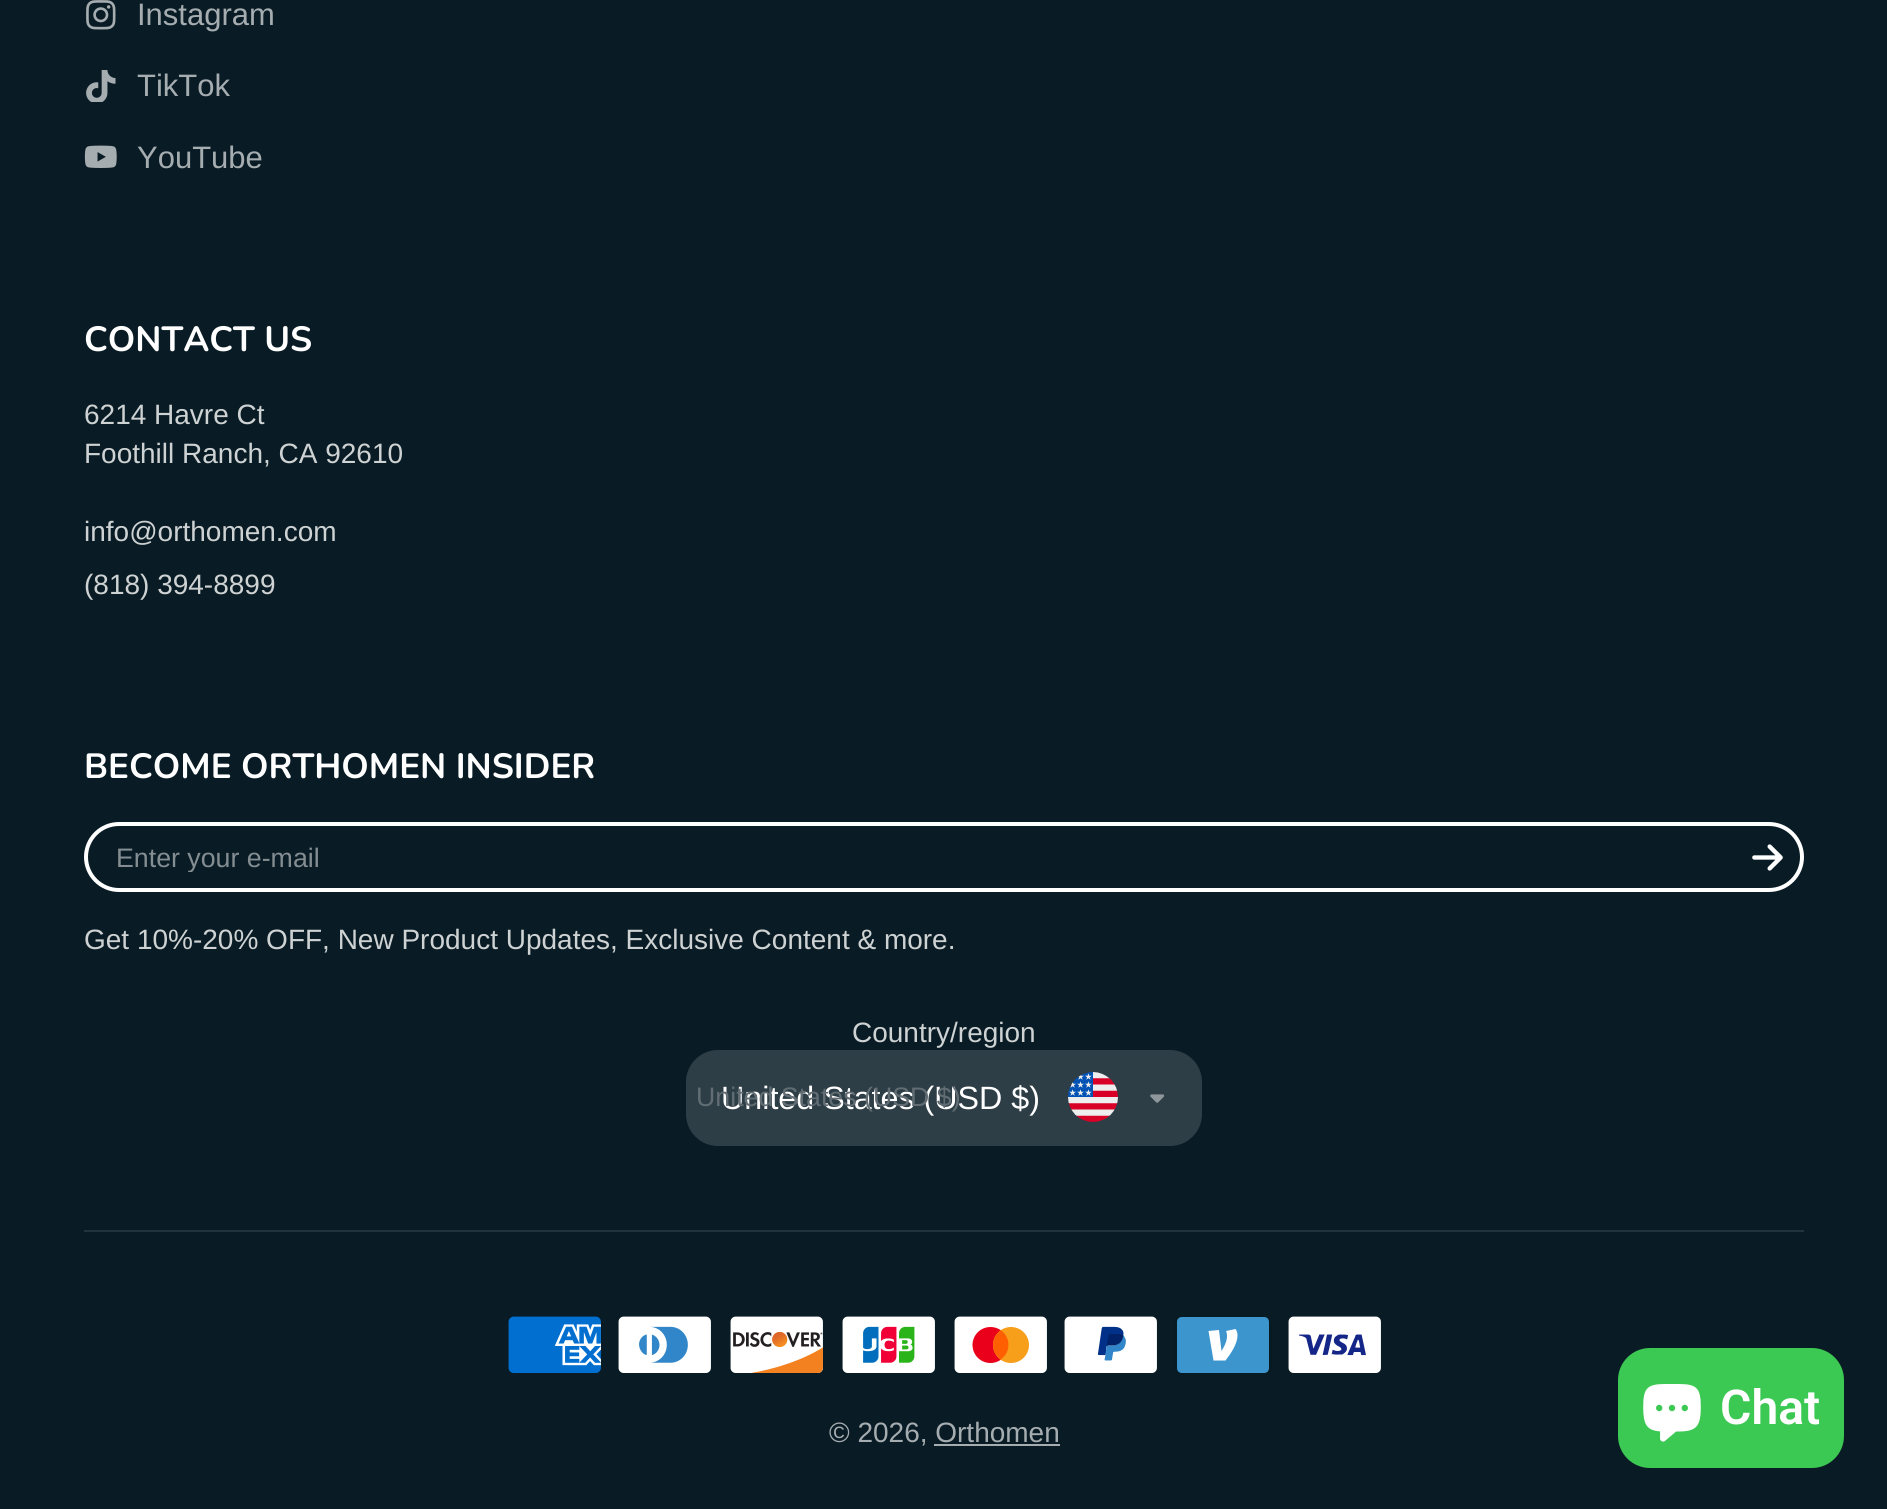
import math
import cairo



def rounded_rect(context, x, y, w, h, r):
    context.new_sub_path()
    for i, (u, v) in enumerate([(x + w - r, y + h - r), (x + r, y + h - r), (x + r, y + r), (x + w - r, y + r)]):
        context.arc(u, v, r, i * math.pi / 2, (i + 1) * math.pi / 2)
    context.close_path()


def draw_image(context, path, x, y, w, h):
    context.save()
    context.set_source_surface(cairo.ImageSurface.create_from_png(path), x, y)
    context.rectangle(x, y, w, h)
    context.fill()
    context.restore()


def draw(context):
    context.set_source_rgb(9 / 255, 28 / 255, 37 / 255)
    context.paint()
    draw_image(context, "images/1.png", 86, 0, 30, 30)
    draw_image(context, "images/2.png", 86, 70, 30, 32)
    draw_image(context, "images/3.png", 84, 145, 33, 23)
    rounded_rect(context, 86, 824, 1716, 66, 33)
    context.set_source_rgb(1, 1, 1)
    context.set_line_width(4)
    context.stroke()
    draw_image(context, "images/4.png", 1752, 844, 31, 27)
    context.set_source_rgb(46 / 255, 62 / 255, 70 / 255)
    rounded_rect(context, 686, 1050, 516, 96, 32)
    context.fill()
    draw_image(context, "images/5.png", 1068, 1072, 50, 50)
    draw_image(context, "images/6.png", 1150, 1094, 15, 9)
    context.set_source_rgb(34 / 255, 51 / 255, 59 / 255)
    context.rectangle(84, 1230, 1720, 2)
    context.fill()
    draw_image(context, "images/7.png", 508, 1316, 93, 57)
    draw_image(context, "images/8.png", 618, 1316, 93, 57)
    draw_image(context, "images/9.png", 730, 1316, 93, 57)
    draw_image(context, "images/10.png", 842, 1316, 93, 57)
    draw_image(context, "images/11.png", 954, 1316, 93, 57)
    draw_image(context, "images/12.png", 1064, 1316, 93, 57)
    context.save()
    context.rectangle(1174, 1314, 98, 60)
    context.clip()
    context.set_source_rgb(8 / 255, 26 / 255, 34 / 255)
    rounded_rect(context, 1174, 1314, 98, 62, 8)
    context.fill()
    context.restore()
    context.set_source_rgb(61 / 255, 149 / 255, 206 / 255)
    context.set_fill_rule(cairo.FillRule.EVEN_ODD)
    context.new_path()
    context.move_to(1264, 1317)
    context.curve_to(1267, 1317, 1269, 1319, 1269, 1322)
    context.line_to(1269, 1368)
    context.curve_to(1269, 1371, 1267, 1373, 1264, 1373)
    context.line_to(1182, 1373)
    context.curve_to(1179, 1373, 1177, 1371, 1177, 1368)
    context.line_to(1177, 1322)
    context.curve_to(1177, 1319, 1179, 1317, 1182, 1317)
    context.line_to(1264, 1317)
    context.fill()
    context.set_source_rgb(1, 1, 1)
    context.set_fill_rule(cairo.FillRule.WINDING)
    context.new_path()
    context.move_to(1237.5, 1335.5)
    context.curve_to(1237.5, 1343.5, 1231, 1353.5, 1225.5, 1360.5)
    context.line_to(1213.5, 1360.5)
    context.line_to(1208.5, 1331)
    context.line_to(1219, 1330)
    context.line_to(1221.5, 1351)
    context.curve_to(1225, 1345.5, 1229, 1337.5, 1226, 1331)
    context.line_to(1235.5, 1329)
    context.curve_to(1237, 1331, 1237.5, 1333, 1237.5, 1335.5)
    context.close_path()
    context.fill()
    draw_image(context, "images/13.png", 1288, 1316, 93, 57)
    context.set_source_rgb(166 / 255, 173 / 255, 177 / 255)
    context.rectangle(934, 1444, 126, 2)
    context.fill()
    context.set_source_rgb(59 / 255, 200 / 255, 83 / 255)
    rounded_rect(context, 1618, 1348, 226, 120, 32)
    context.fill()
    draw_image(context, "images/14.png", 1643, 1384, 58, 58)
    context.select_font_face("Liberation Sans")
    context.set_font_size(31)
    context.set_source_rgb(166 / 255, 173 / 255, 177 / 255)
    context.move_to(137, 25)
    context.show_text("Instagram")
    context.move_to(137, 96)
    context.show_text("TikTok")
    context.move_to(137, 168)
    context.show_text("YouTube")
    context.select_font_face("Nunito", cairo.FontSlant.NORMAL, cairo.FontWeight.BOLD)
    context.set_font_size(35)
    context.set_source_rgb(1, 1, 1)
    context.move_to(84, 351)
    context.show_text("CONTACT US")
    context.select_font_face("Liberation Sans")
    context.set_font_size(28)
    context.set_source_rgb(206 / 255, 210 / 255, 211 / 255)
    context.move_to(84, 424)
    context.show_text("6214 Havre Ct")
    context.move_to(84, 463)
    context.show_text("Foothill Ranch, CA 92610")
    context.move_to(84, 541)
    context.show_text("info@orthomen.com")
    context.move_to(84, 594)
    context.show_text("(818) 394-8899")
    context.select_font_face("Nunito", cairo.FontSlant.NORMAL, cairo.FontWeight.BOLD)
    context.set_font_size(35)
    context.set_source_rgb(1, 1, 1)
    context.move_to(84, 778)
    context.show_text("BECOME ORTHOMEN INSIDER")
    context.save()
    context.rectangle(116, 842, 1656, 30)
    context.clip()
    context.select_font_face("Liberation Sans")
    context.set_font_size(26.75)
    context.set_source_rgb(132 / 255, 142 / 255, 146 / 255)
    context.move_to(116, 867)
    context.show_text("Enter your e-mail")
    context.restore()
    context.select_font_face("Liberation Sans")
    context.set_font_size(28)
    context.set_source_rgb(206 / 255, 210 / 255, 211 / 255)
    context.move_to(84, 949)
    context.show_text("Get 10%-20% OFF, New Product Updates, Exclusive Content & more.")
    context.move_to(852, 1042)
    context.show_text("Country/region")
    context.set_font_size(32.25)
    context.set_source_rgb(1, 1, 1)
    context.move_to(721, 1109)
    context.show_text("United States (USD $)")
    context.set_font_size(26.75)
    context.set_source_rgb(97 / 255, 109 / 255, 115 / 255)
    context.move_to(696, 1106)
    context.show_text("United States (USD $)")
    context.set_font_size(28)
    context.set_source_rgb(166 / 255, 173 / 255, 177 / 255)
    context.move_to(829, 1442)
    context.show_text("© 2026, Orthomen")
    context.select_font_face("Roboto SemiBold")
    context.set_font_size(48)
    context.set_source_rgb(1, 1, 1)
    context.move_to(1720, 1424)
    context.show_text("Chat")


surface = cairo.ImageSurface(cairo.Format.RGB24, 1887, 1509)
context = cairo.Context(surface)
options = cairo.FontOptions()
options.set_hint_metrics(cairo.HintMetrics.OFF)
options.set_hint_style(cairo.HintStyle.NONE)
context.set_font_options(options)
context.set_miter_limit(4)
draw(context)
surface.write_to_png("out.png")
